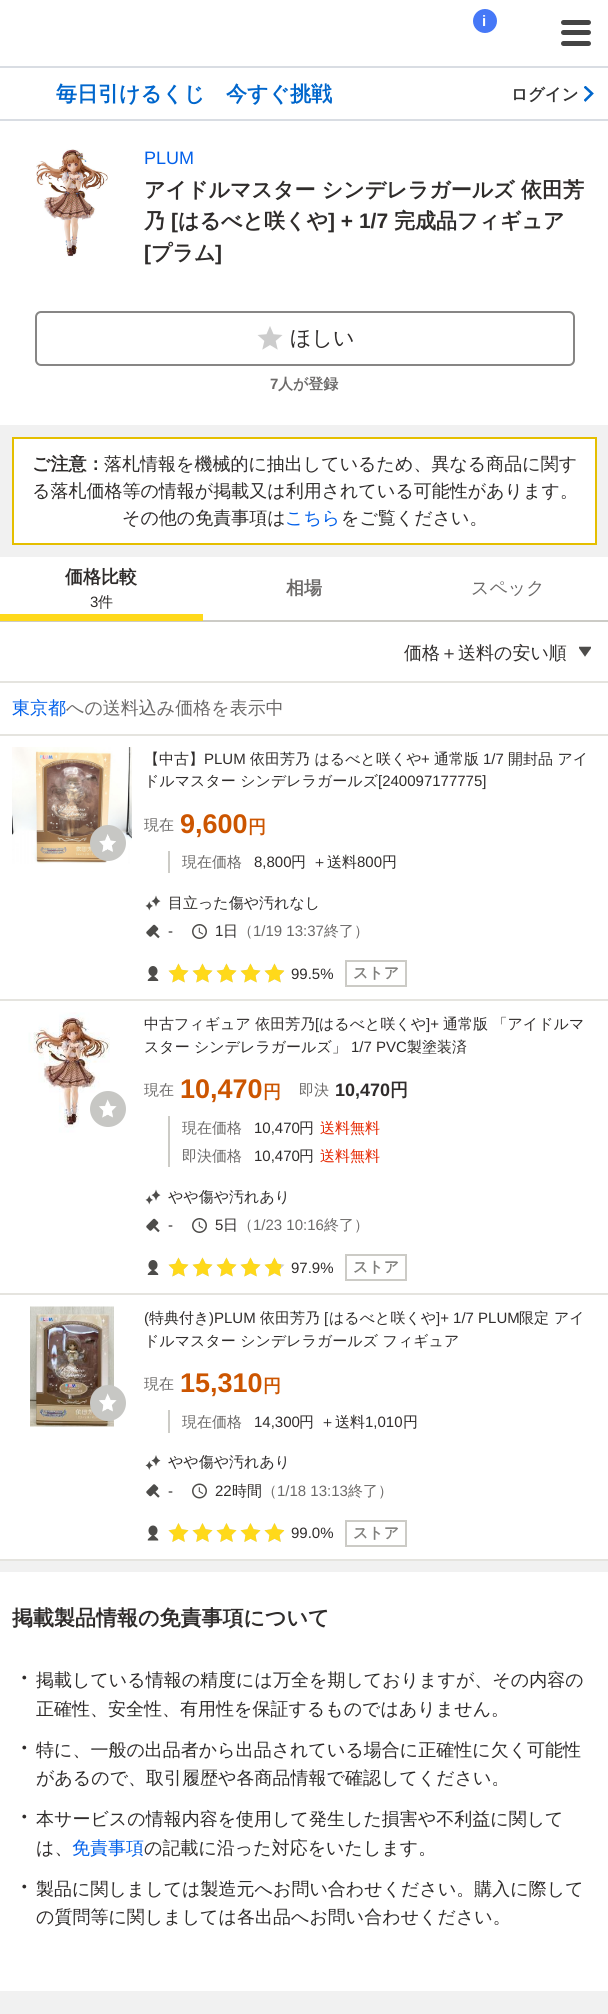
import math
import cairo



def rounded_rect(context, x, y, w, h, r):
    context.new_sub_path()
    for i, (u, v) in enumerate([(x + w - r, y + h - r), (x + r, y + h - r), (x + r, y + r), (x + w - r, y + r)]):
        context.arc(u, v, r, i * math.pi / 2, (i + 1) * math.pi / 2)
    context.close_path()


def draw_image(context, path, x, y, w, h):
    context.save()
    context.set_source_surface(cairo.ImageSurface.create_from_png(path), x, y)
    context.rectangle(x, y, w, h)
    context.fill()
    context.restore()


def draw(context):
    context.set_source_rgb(1, 1, 1)
    context.paint()
    context.set_source_rgb(70 / 255, 120 / 255, 247 / 255)
    context.arc(485, 21, 13.5, 0, 2 * math.pi)
    context.fill_preserve()
    context.set_source_rgb(1, 1, 1)
    context.set_line_width(3)
    context.stroke()
    context.set_source_rgb(68 / 255, 68 / 255, 68 / 255)
    rounded_rect(context, 561, 30, 30, 5, 2.5)
    context.fill()
    rounded_rect(context, 561, 20, 30, 5, 2.5)
    context.fill()
    rounded_rect(context, 561, 41, 30, 5, 2.5)
    context.fill()
    context.set_source_rgb(217 / 255, 221 / 255, 227 / 255)
    context.rectangle(0, 66, 608, 2)
    context.fill()
    context.rectangle(0, 119, 608, 2)
    context.fill()
    context.save()
    context.rectangle(584, 86, 10, 16)
    context.clip()
    context.new_path()
    context.move_to(584.5, 86.5)
    context.line_to(592, 93.5)
    context.line_to(584.5, 101)
    context.set_source_rgb(0, 102 / 255, 204 / 255)
    context.set_line_width(2.6)
    context.stroke()
    context.restore()
    context.set_source_rgb(241 / 255, 241 / 255, 241 / 255)
    context.rectangle(0, 425, 608, 1147)
    context.fill()
    draw_image(context, "images/1.png", 36, 149, 72, 108)
    rounded_rect(context, 36, 312, 538, 53, 5)
    context.set_source_rgb(135 / 255, 134 / 255, 133 / 255)
    context.set_line_width(2)
    context.stroke()
    draw_image(context, "images/2.png", 257, 326, 26, 24)
    context.set_source_rgb(1, 1, 1)
    context.rectangle(13, 438, 583, 106)
    context.fill_preserve()
    context.set_source_rgb(229 / 255, 191 / 255, 0)
    context.stroke()
    context.set_source_rgb(1, 1, 1)
    context.rectangle(0, 557, 608, 63)
    context.fill()
    context.set_source_rgb(204 / 255, 203 / 255, 198 / 255)
    context.rectangle(0, 620, 608, 2)
    context.fill()
    context.set_source_rgb(1, 217 / 255, 26 / 255)
    context.rectangle(0, 614, 203, 7)
    context.fill()
    context.set_source_rgb(1, 1, 1)
    context.rectangle(0, 622, 608, 937)
    context.fill()
    context.set_source_rgb(229 / 255, 228 / 255, 223 / 255)
    context.rectangle(0, 734, 608, 2)
    context.fill()
    draw_image(context, "images/3.png", 579, 646, 12, 11)
    context.rectangle(0, 681, 608, 2)
    context.fill()
    context.rectangle(0, 999, 608, 2)
    context.fill()
    draw_image(context, "images/5.png", 12, 747, 120, 117)
    context.set_source_rgb(199 / 255, 199 / 255, 196 / 255)
    context.arc(108, 843, 18, 0, 2 * math.pi)
    context.fill()
    draw_image(context, "images/4.png", 99, 834, 17, 18)
    context.set_source_rgb(204 / 255, 203 / 255, 198 / 255)
    context.rectangle(168, 851, 2, 22)
    context.fill()
    draw_image(context, "images/6.png", 145, 895, 16, 16)
    draw_image(context, "images/7.png", 146, 924, 14, 15)
    draw_image(context, "images/8.png", 192, 924, 15, 15)
    draw_image(context, "images/9.png", 147, 966, 12, 15)
    draw_image(context, "images/10.png", 168, 963, 21, 20)
    draw_image(context, "images/11.png", 168, 963, 21, 20)
    draw_image(context, "images/10.png", 192, 963, 21, 20)
    draw_image(context, "images/11.png", 192, 963, 21, 20)
    draw_image(context, "images/10.png", 216, 963, 21, 20)
    draw_image(context, "images/11.png", 216, 963, 21, 20)
    draw_image(context, "images/10.png", 240, 963, 21, 20)
    draw_image(context, "images/11.png", 240, 963, 21, 20)
    draw_image(context, "images/10.png", 264, 963, 21, 20)
    draw_image(context, "images/12.png", 264, 963, 20, 20)
    context.rectangle(346, 961, 60, 25)
    context.stroke()
    context.set_source_rgb(229 / 255, 228 / 255, 223 / 255)
    context.rectangle(0, 1293, 608, 2)
    context.fill()
    draw_image(context, "images/14.png", 28, 1012, 82, 121)
    context.set_source_rgb(199 / 255, 199 / 255, 196 / 255)
    context.arc(108, 1109, 18, 0, 2 * math.pi)
    context.fill()
    draw_image(context, "images/13.png", 99, 1099, 18, 19)
    context.set_source_rgb(204 / 255, 203 / 255, 198 / 255)
    context.rectangle(168, 1116, 2, 51)
    context.fill()
    draw_image(context, "images/6.png", 145, 1189, 16, 16)
    draw_image(context, "images/7.png", 146, 1218, 14, 15)
    draw_image(context, "images/8.png", 192, 1218, 15, 15)
    draw_image(context, "images/9.png", 147, 1260, 12, 15)
    draw_image(context, "images/10.png", 168, 1257, 21, 20)
    draw_image(context, "images/11.png", 168, 1257, 21, 20)
    draw_image(context, "images/10.png", 192, 1257, 21, 20)
    draw_image(context, "images/11.png", 192, 1257, 21, 20)
    draw_image(context, "images/10.png", 216, 1257, 21, 20)
    draw_image(context, "images/11.png", 216, 1257, 21, 20)
    draw_image(context, "images/10.png", 240, 1257, 21, 20)
    draw_image(context, "images/11.png", 240, 1257, 21, 20)
    draw_image(context, "images/10.png", 264, 1257, 21, 20)
    draw_image(context, "images/15.png", 264, 1257, 17, 20)
    context.rectangle(346, 1255, 60, 25)
    context.stroke()
    context.set_source_rgb(229 / 255, 228 / 255, 223 / 255)
    context.rectangle(0, 1559, 608, 2)
    context.fill()
    draw_image(context, "images/16.png", 30, 1306, 84, 121)
    context.set_source_rgb(199 / 255, 199 / 255, 196 / 255)
    context.arc(108, 1403, 18, 0, 2 * math.pi)
    context.fill()
    draw_image(context, "images/13.png", 99, 1393, 18, 19)
    context.set_source_rgb(204 / 255, 203 / 255, 198 / 255)
    context.rectangle(168, 1410, 2, 23)
    context.fill()
    draw_image(context, "images/17.png", 145, 1455, 16, 15)
    draw_image(context, "images/18.png", 146, 1484, 14, 14)
    draw_image(context, "images/19.png", 192, 1483, 15, 16)
    draw_image(context, "images/20.png", 147, 1525, 12, 16)
    draw_image(context, "images/21.png", 168, 1523, 21, 19)
    draw_image(context, "images/22.png", 168, 1523, 21, 19)
    draw_image(context, "images/21.png", 192, 1523, 21, 19)
    draw_image(context, "images/22.png", 192, 1523, 21, 19)
    draw_image(context, "images/21.png", 216, 1523, 21, 19)
    draw_image(context, "images/22.png", 216, 1523, 21, 19)
    draw_image(context, "images/21.png", 240, 1523, 21, 19)
    draw_image(context, "images/22.png", 240, 1523, 21, 19)
    draw_image(context, "images/21.png", 264, 1523, 21, 19)
    draw_image(context, "images/23.png", 264, 1523, 20, 19)
    context.rectangle(346, 1521, 60, 25)
    context.stroke()
    context.set_source_rgb(241 / 255, 241 / 255, 241 / 255)
    context.rectangle(0, 1991, 608, 23)
    context.fill()
    context.select_font_face("Liberation Sans", cairo.FontSlant.NORMAL, cairo.FontWeight.BOLD)
    context.set_font_size(15)
    context.set_source_rgb(1, 1, 1)
    context.move_to(482, 26)
    context.show_text("i")
    context.select_font_face("WenQuanYi Zen Hei", cairo.FontSlant.NORMAL, cairo.FontWeight.BOLD)
    context.set_font_size(21)
    context.set_source_rgb(0, 102 / 255, 204 / 255)
    context.move_to(56, 101)
    context.show_text("毎日引けるくじ　今すぐ挑戦")
    context.set_font_size(16.5)
    context.set_source_rgb(51 / 255, 51 / 255, 51 / 255)
    context.move_to(511, 100)
    context.show_text("ログイン")
    context.select_font_face("Liberation Sans")
    context.set_font_size(18)
    context.set_source_rgb(2 / 255, 96 / 255, 234 / 255)
    context.move_to(144, 164)
    context.show_text("PLUM")
    context.select_font_face("WenQuanYi Zen Hei", cairo.FontSlant.NORMAL, cairo.FontWeight.BOLD)
    context.set_font_size(21)
    context.set_source_rgb(47 / 255, 44 / 255, 43 / 255)
    context.move_to(144, 197)
    context.show_text("アイドルマスター シンデレラガールズ 依田芳")
    context.move_to(144, 228)
    context.show_text("乃")
    context.select_font_face("Liberation Sans", cairo.FontSlant.NORMAL, cairo.FontWeight.BOLD)
    context.move_to(171, 228)
    context.show_text("[")
    context.select_font_face("WenQuanYi Zen Hei", cairo.FontSlant.NORMAL, cairo.FontWeight.BOLD)
    context.move_to(178, 228)
    context.show_text("はるべと咲くや")
    context.select_font_face("Liberation Sans", cairo.FontSlant.NORMAL, cairo.FontWeight.BOLD)
    context.move_to(328, 228)
    context.show_text("] + 1/7")
    context.select_font_face("WenQuanYi Zen Hei", cairo.FontSlant.NORMAL, cairo.FontWeight.BOLD)
    context.move_to(394, 228)
    context.show_text("完成品フィギュア")
    context.select_font_face("Liberation Sans", cairo.FontSlant.NORMAL, cairo.FontWeight.BOLD)
    context.move_to(144, 260)
    context.show_text("[")
    context.select_font_face("WenQuanYi Zen Hei", cairo.FontSlant.NORMAL, cairo.FontWeight.BOLD)
    context.move_to(151, 260)
    context.show_text("プラム")
    context.select_font_face("Liberation Sans", cairo.FontSlant.NORMAL, cairo.FontWeight.BOLD)
    context.move_to(215, 260)
    context.show_text("]")
    context.select_font_face("WenQuanYi Zen Hei Medium")
    context.move_to(290, 345)
    context.show_text("ほしい")
    context.select_font_face("Liberation Sans", cairo.FontSlant.NORMAL, cairo.FontWeight.BOLD)
    context.set_font_size(15)
    context.set_source_rgb(108 / 255, 106 / 255, 105 / 255)
    context.move_to(270, 389)
    context.show_text("7")
    context.select_font_face("WenQuanYi Zen Hei", cairo.FontSlant.NORMAL, cairo.FontWeight.BOLD)
    context.move_to(278, 389)
    context.show_text("人が登録")
    context.set_font_size(18)
    context.set_source_rgb(47 / 255, 44 / 255, 43 / 255)
    context.move_to(32, 470)
    context.show_text("ご注意：")
    context.select_font_face("WenQuanYi Zen Hei Medium")
    context.move_to(104, 470)
    context.show_text("落札情報を機械的に抽出しているため、異なる商品に関す")
    context.move_to(32, 497)
    context.show_text("る落札価格等の情報が掲載又は利用されている可能性があります。")
    context.move_to(122, 524)
    context.show_text("その他の免責事項は")
    context.set_source_rgb(2 / 255, 96 / 255, 234 / 255)
    context.move_to(285, 524)
    context.show_text("こちら")
    context.set_source_rgb(47 / 255, 44 / 255, 43 / 255)
    context.move_to(341, 524)
    context.show_text("をご覧ください。")
    context.select_font_face("WenQuanYi Zen Hei", cairo.FontSlant.NORMAL, cairo.FontWeight.BOLD)
    context.move_to(65, 583)
    context.show_text("価格比較")
    context.select_font_face("Liberation Sans")
    context.set_font_size(15)
    context.move_to(90, 607)
    context.show_text("3")
    context.select_font_face("WenQuanYi Zen Hei Medium")
    context.move_to(98, 607)
    context.show_text("件")
    context.select_font_face("WenQuanYi Zen Hei", cairo.FontSlant.NORMAL, cairo.FontWeight.BOLD)
    context.set_font_size(18)
    context.set_source_rgb(108 / 255, 106 / 255, 105 / 255)
    context.move_to(286, 594)
    context.show_text("相場")
    context.select_font_face("WenQuanYi Zen Hei Medium")
    context.move_to(471, 594)
    context.show_text("スペック")
    context.set_source_rgb(47 / 255, 44 / 255, 43 / 255)
    context.move_to(404, 659)
    context.show_text("価格＋送料の安い順")
    context.set_source_rgb(2 / 255, 96 / 255, 234 / 255)
    context.move_to(12, 714)
    context.show_text("東京都")
    context.set_source_rgb(108 / 255, 106 / 255, 105 / 255)
    context.move_to(66, 714)
    context.show_text("への送料込み価格を表示中")
    context.set_font_size(15)
    context.set_source_rgb(47 / 255, 44 / 255, 43 / 255)
    context.move_to(144, 764)
    context.show_text("【中古】")
    context.select_font_face("Liberation Sans")
    context.move_to(204, 764)
    context.show_text("PLUM")
    context.select_font_face("WenQuanYi Zen Hei Medium")
    context.move_to(250, 764)
    context.show_text("依田芳乃 はるべと咲くや")
    context.select_font_face("Liberation Sans")
    context.move_to(421, 764)
    context.show_text("+")
    context.select_font_face("WenQuanYi Zen Hei Medium")
    context.move_to(434, 764)
    context.show_text("通常版")
    context.select_font_face("Liberation Sans")
    context.move_to(483, 764)
    context.show_text("1/7")
    context.select_font_face("WenQuanYi Zen Hei Medium")
    context.move_to(508, 764)
    context.show_text("開封品 アイ")
    context.move_to(144, 786)
    context.show_text("ドルマスター シンデレラガールズ")
    context.select_font_face("Liberation Sans")
    context.move_to(378, 786)
    context.show_text("[240097177775]")
    context.select_font_face("WenQuanYi Zen Hei Medium")
    context.set_source_rgb(108 / 255, 106 / 255, 105 / 255)
    context.move_to(144, 830)
    context.show_text("現在")
    context.select_font_face("Liberation Sans", cairo.FontSlant.NORMAL, cairo.FontWeight.BOLD)
    context.set_font_size(27)
    context.set_source_rgb(204 / 255, 85 / 255, 0)
    context.move_to(180, 833)
    context.show_text("9,600")
    context.select_font_face("WenQuanYi Zen Hei", cairo.FontSlant.NORMAL, cairo.FontWeight.BOLD)
    context.set_font_size(18)
    context.move_to(248, 833)
    context.show_text("円")
    context.select_font_face("WenQuanYi Zen Hei Medium")
    context.set_font_size(15)
    context.set_source_rgb(108 / 255, 106 / 255, 105 / 255)
    context.move_to(182, 867)
    context.show_text("現在価格")
    context.select_font_face("Liberation Sans")
    context.set_source_rgb(47 / 255, 44 / 255, 43 / 255)
    context.move_to(254, 867)
    context.show_text("8,800")
    context.select_font_face("WenQuanYi Zen Hei Medium")
    context.move_to(291, 867)
    context.show_text("円")
    context.move_to(312, 867)
    context.show_text("＋送料")
    context.select_font_face("Liberation Sans")
    context.move_to(357, 867)
    context.show_text("800")
    context.select_font_face("WenQuanYi Zen Hei Medium")
    context.move_to(382, 867)
    context.show_text("円")
    context.move_to(168, 908)
    context.show_text("目立った傷や汚れなし")
    context.select_font_face("Liberation Sans")
    context.move_to(168, 936)
    context.show_text("-")
    context.move_to(215, 936)
    context.show_text("1")
    context.select_font_face("WenQuanYi Zen Hei Medium")
    context.move_to(223, 936)
    context.show_text("日")
    context.set_source_rgb(108 / 255, 106 / 255, 105 / 255)
    context.move_to(238, 936)
    context.show_text("（")
    context.select_font_face("Liberation Sans")
    context.move_to(253, 936)
    context.show_text("1/19 13:37")
    context.select_font_face("WenQuanYi Zen Hei Medium")
    context.move_to(324, 936)
    context.show_text("終了）")
    context.select_font_face("Liberation Sans")
    context.set_source_rgb(47 / 255, 44 / 255, 43 / 255)
    context.move_to(291, 979)
    context.show_text("99.5%")
    context.select_font_face("WenQuanYi Zen Hei", cairo.FontSlant.NORMAL, cairo.FontWeight.BOLD)
    context.set_source_rgb(128 / 255, 127 / 255, 124 / 255)
    context.move_to(353, 978)
    context.show_text("ストア")
    context.select_font_face("WenQuanYi Zen Hei Medium")
    context.set_source_rgb(47 / 255, 44 / 255, 43 / 255)
    context.move_to(144, 1029)
    context.show_text("中古フィギュア 依田芳乃")
    context.select_font_face("Liberation Sans")
    context.move_to(315, 1029)
    context.show_text("[")
    context.select_font_face("WenQuanYi Zen Hei Medium")
    context.move_to(319, 1029)
    context.show_text("はるべと咲くや")
    context.select_font_face("Liberation Sans")
    context.move_to(426, 1029)
    context.show_text("]+")
    context.select_font_face("WenQuanYi Zen Hei Medium")
    context.move_to(443, 1029)
    context.show_text("通常版 「アイドルマ")
    context.move_to(144, 1052)
    context.show_text("スター")
    context.move_to(194, 1052)
    context.show_text("シンデレラガールズ」")
    context.select_font_face("Liberation Sans")
    context.move_to(351, 1052)
    context.show_text("1/7 PVC")
    context.select_font_face("WenQuanYi Zen Hei Medium")
    context.move_to(407, 1052)
    context.show_text("製塗装済")
    context.set_source_rgb(108 / 255, 106 / 255, 105 / 255)
    context.move_to(144, 1095)
    context.show_text("現在")
    context.select_font_face("Liberation Sans", cairo.FontSlant.NORMAL, cairo.FontWeight.BOLD)
    context.set_font_size(27)
    context.set_source_rgb(204 / 255, 85 / 255, 0)
    context.move_to(180, 1098)
    context.show_text("10,470")
    context.select_font_face("WenQuanYi Zen Hei", cairo.FontSlant.NORMAL, cairo.FontWeight.BOLD)
    context.set_font_size(18)
    context.move_to(263, 1098)
    context.show_text("円")
    context.select_font_face("WenQuanYi Zen Hei Medium")
    context.set_font_size(15)
    context.set_source_rgb(108 / 255, 106 / 255, 105 / 255)
    context.move_to(299, 1095)
    context.show_text("即決")
    context.select_font_face("Liberation Sans", cairo.FontSlant.NORMAL, cairo.FontWeight.BOLD)
    context.set_font_size(18)
    context.set_source_rgb(47 / 255, 44 / 255, 43 / 255)
    context.move_to(335, 1096)
    context.show_text("10,470")
    context.select_font_face("WenQuanYi Zen Hei", cairo.FontSlant.NORMAL, cairo.FontWeight.BOLD)
    context.move_to(390, 1096)
    context.show_text("円")
    context.select_font_face("WenQuanYi Zen Hei Medium")
    context.set_font_size(15)
    context.set_source_rgb(108 / 255, 106 / 255, 105 / 255)
    context.move_to(182, 1133)
    context.show_text("現在価格")
    context.select_font_face("Liberation Sans")
    context.set_source_rgb(47 / 255, 44 / 255, 43 / 255)
    context.move_to(254, 1133)
    context.show_text("10,470")
    context.select_font_face("WenQuanYi Zen Hei Medium")
    context.move_to(299, 1133)
    context.show_text("円")
    context.set_source_rgb(229 / 255, 38 / 255, 0)
    context.move_to(320, 1133)
    context.show_text("送料無料")
    context.set_source_rgb(108 / 255, 106 / 255, 105 / 255)
    context.move_to(182, 1161)
    context.show_text("即決価格")
    context.select_font_face("Liberation Sans")
    context.set_source_rgb(47 / 255, 44 / 255, 43 / 255)
    context.move_to(254, 1161)
    context.show_text("10,470")
    context.select_font_face("WenQuanYi Zen Hei Medium")
    context.move_to(299, 1161)
    context.show_text("円")
    context.set_source_rgb(229 / 255, 38 / 255, 0)
    context.move_to(320, 1161)
    context.show_text("送料無料")
    context.set_source_rgb(47 / 255, 44 / 255, 43 / 255)
    context.move_to(168, 1202)
    context.show_text("やや傷や汚れあり")
    context.select_font_face("Liberation Sans")
    context.move_to(168, 1230)
    context.show_text("-")
    context.move_to(215, 1230)
    context.show_text("5")
    context.select_font_face("WenQuanYi Zen Hei Medium")
    context.move_to(223, 1230)
    context.show_text("日")
    context.set_source_rgb(108 / 255, 106 / 255, 105 / 255)
    context.move_to(238, 1230)
    context.show_text("（")
    context.select_font_face("Liberation Sans")
    context.move_to(253, 1230)
    context.show_text("1/23 10:16")
    context.select_font_face("WenQuanYi Zen Hei Medium")
    context.move_to(324, 1230)
    context.show_text("終了）")
    context.select_font_face("Liberation Sans")
    context.set_source_rgb(47 / 255, 44 / 255, 43 / 255)
    context.move_to(291, 1273)
    context.show_text("97.9%")
    context.select_font_face("WenQuanYi Zen Hei", cairo.FontSlant.NORMAL, cairo.FontWeight.BOLD)
    context.set_source_rgb(128 / 255, 127 / 255, 124 / 255)
    context.move_to(353, 1272)
    context.show_text("ストア")
    context.select_font_face("Liberation Sans")
    context.set_source_rgb(47 / 255, 44 / 255, 43 / 255)
    context.move_to(144, 1323)
    context.show_text("(")
    context.select_font_face("WenQuanYi Zen Hei Medium")
    context.move_to(149, 1323)
    context.show_text("特典付き")
    context.select_font_face("Liberation Sans")
    context.move_to(209, 1323)
    context.show_text(")PLUM")
    context.select_font_face("WenQuanYi Zen Hei Medium")
    context.move_to(260, 1323)
    context.show_text("依田芳乃")
    context.select_font_face("Liberation Sans")
    context.move_to(324, 1323)
    context.show_text("[")
    context.select_font_face("WenQuanYi Zen Hei Medium")
    context.move_to(329, 1323)
    context.show_text("はるべと咲くや")
    context.select_font_face("Liberation Sans")
    context.move_to(436, 1323)
    context.show_text("]+ 1/7 PLUM")
    context.select_font_face("WenQuanYi Zen Hei Medium")
    context.move_to(519, 1323)
    context.show_text("限定")
    context.move_to(554, 1323)
    context.show_text("アイ")
    context.move_to(144, 1346)
    context.show_text("ドルマスター シンデレラガールズ フィギュア")
    context.set_source_rgb(108 / 255, 106 / 255, 105 / 255)
    context.move_to(144, 1389)
    context.show_text("現在")
    context.select_font_face("Liberation Sans", cairo.FontSlant.NORMAL, cairo.FontWeight.BOLD)
    context.set_font_size(27)
    context.set_source_rgb(204 / 255, 85 / 255, 0)
    context.move_to(180, 1392)
    context.show_text("15,310")
    context.select_font_face("WenQuanYi Zen Hei", cairo.FontSlant.NORMAL, cairo.FontWeight.BOLD)
    context.set_font_size(18)
    context.move_to(263, 1392)
    context.show_text("円")
    context.select_font_face("WenQuanYi Zen Hei Medium")
    context.set_font_size(15)
    context.set_source_rgb(108 / 255, 106 / 255, 105 / 255)
    context.move_to(182, 1427)
    context.show_text("現在価格")
    context.select_font_face("Liberation Sans")
    context.set_source_rgb(47 / 255, 44 / 255, 43 / 255)
    context.move_to(254, 1427)
    context.show_text("14,300")
    context.select_font_face("WenQuanYi Zen Hei Medium")
    context.move_to(299, 1427)
    context.show_text("円")
    context.move_to(320, 1427)
    context.show_text("＋送料")
    context.select_font_face("Liberation Sans")
    context.move_to(365, 1427)
    context.show_text("1,010")
    context.select_font_face("WenQuanYi Zen Hei Medium")
    context.move_to(403, 1427)
    context.show_text("円")
    context.move_to(168, 1467)
    context.show_text("やや傷や汚れあり")
    context.select_font_face("Liberation Sans")
    context.move_to(168, 1496)
    context.show_text("-")
    context.move_to(215, 1496)
    context.show_text("22")
    context.select_font_face("WenQuanYi Zen Hei Medium")
    context.move_to(232, 1496)
    context.show_text("時間")
    context.set_source_rgb(108 / 255, 106 / 255, 105 / 255)
    context.move_to(262, 1496)
    context.show_text("（")
    context.select_font_face("Liberation Sans")
    context.move_to(277, 1496)
    context.show_text("1/18 13:13")
    context.select_font_face("WenQuanYi Zen Hei Medium")
    context.move_to(348, 1496)
    context.show_text("終了）")
    context.select_font_face("Liberation Sans")
    context.set_source_rgb(47 / 255, 44 / 255, 43 / 255)
    context.move_to(291, 1538)
    context.show_text("99.0%")
    context.select_font_face("WenQuanYi Zen Hei", cairo.FontSlant.NORMAL, cairo.FontWeight.BOLD)
    context.set_source_rgb(128 / 255, 127 / 255, 124 / 255)
    context.move_to(353, 1538)
    context.show_text("ストア")
    context.set_font_size(21)
    context.set_source_rgb(47 / 255, 44 / 255, 43 / 255)
    context.move_to(12, 1625)
    context.show_text("掲載製品情報の免責事項について")
    context.select_font_face("WenQuanYi Zen Hei Medium")
    context.set_font_size(24)
    context.move_to(12, 1686)
    context.show_text("・")
    context.set_font_size(18)
    context.move_to(36, 1686)
    context.show_text("掲載している情報の精度には万全を期しておりますが、その内容の")
    context.move_to(36, 1715)
    context.show_text("正確性、安全性、有用性を保証するものではありません。")
    context.set_font_size(24)
    context.move_to(12, 1756)
    context.show_text("・")
    context.set_font_size(18)
    context.move_to(36, 1756)
    context.show_text("特に、一般の出品者から出品されている場合に正確性に欠く可能性")
    context.move_to(36, 1784)
    context.show_text("があるので、取引履歴や各商品情報で確認してください。")
    context.set_font_size(24)
    context.move_to(12, 1825)
    context.show_text("・")
    context.set_font_size(18)
    context.move_to(36, 1825)
    context.show_text("本サービスの情報内容を使用して発生した損害や不利益に関して")
    context.move_to(36, 1854)
    context.show_text("は、")
    context.set_source_rgb(2 / 255, 96 / 255, 234 / 255)
    context.move_to(72, 1854)
    context.show_text("免責事項")
    context.set_source_rgb(47 / 255, 44 / 255, 43 / 255)
    context.move_to(144, 1854)
    context.show_text("の記載に沿った対応をいたします。")
    context.set_font_size(24)
    context.move_to(12, 1895)
    context.show_text("・")
    context.set_font_size(18)
    context.move_to(36, 1895)
    context.show_text("製品に関しましては製造元へお問い合わせください。購入に際して")
    context.move_to(36, 1923)
    context.show_text("の質問等に関しましては各出品へお問い合わせください。")


surface = cairo.ImageSurface(cairo.Format.RGB24, 608, 2014)
context = cairo.Context(surface)
options = cairo.FontOptions()
options.set_hint_metrics(cairo.HintMetrics.OFF)
options.set_hint_style(cairo.HintStyle.NONE)
context.set_font_options(options)
context.set_miter_limit(4)
draw(context)
surface.write_to_png("out.png")
